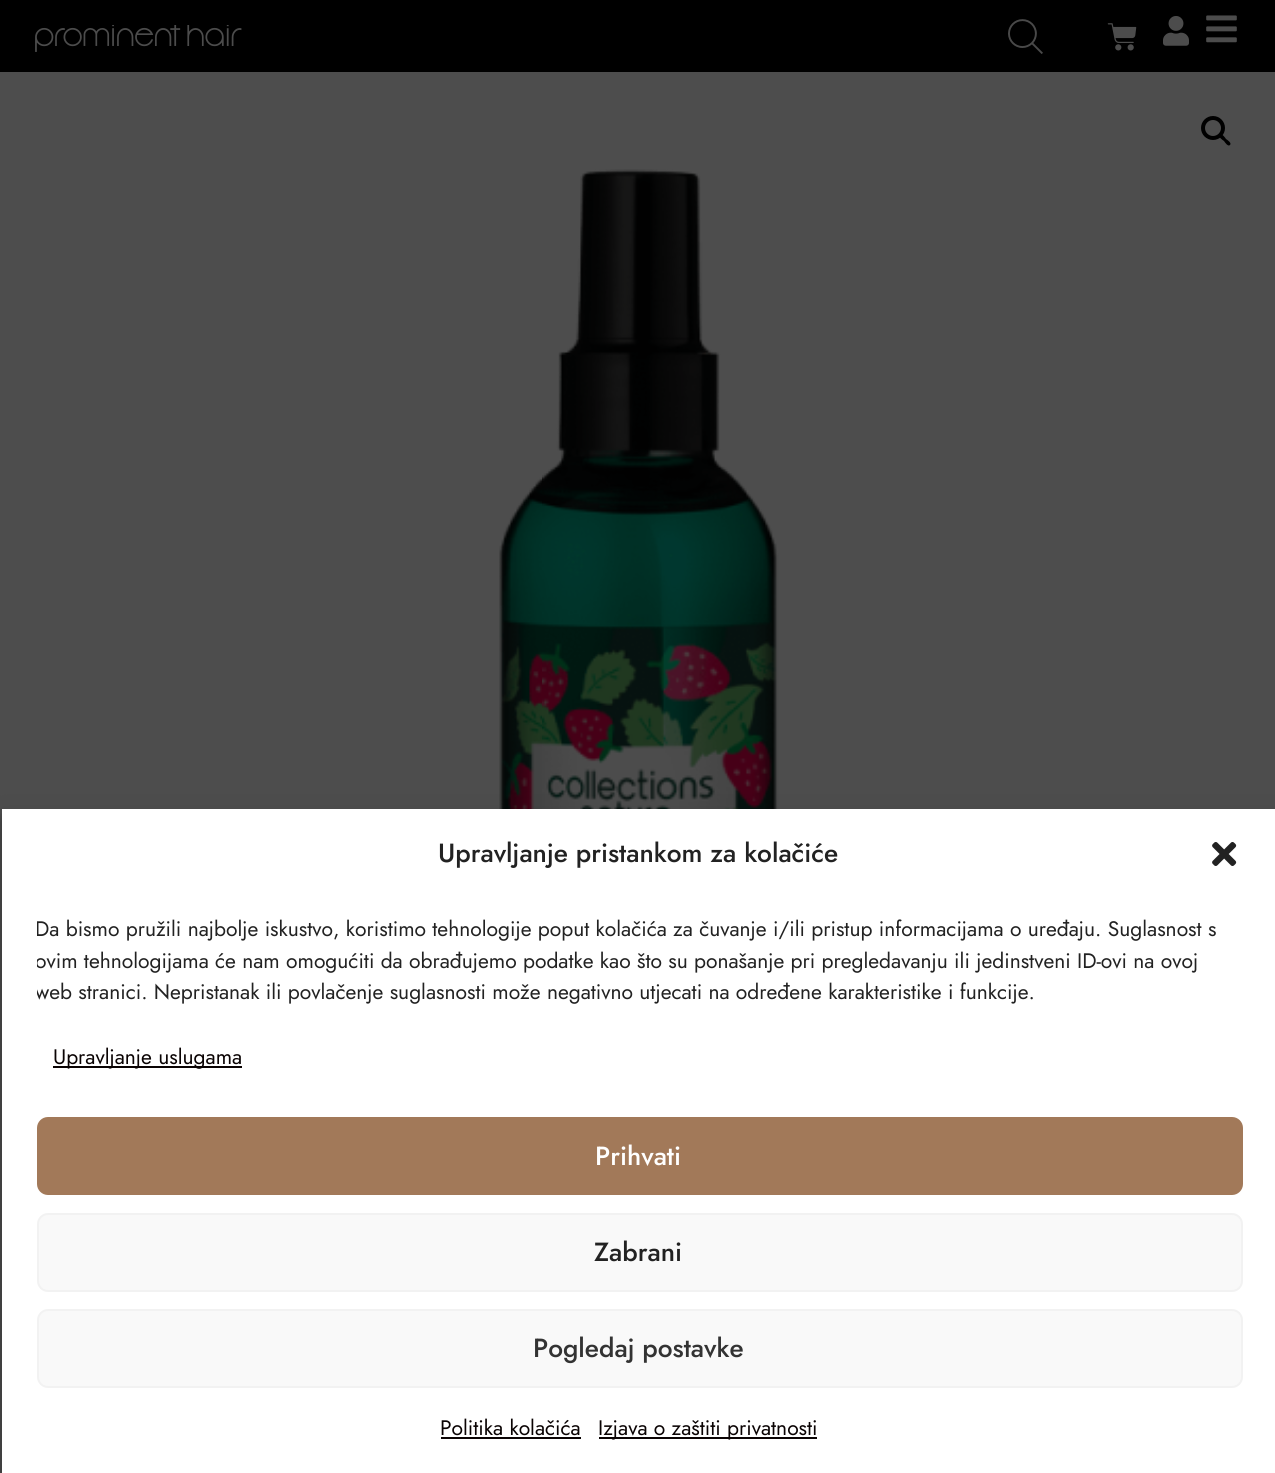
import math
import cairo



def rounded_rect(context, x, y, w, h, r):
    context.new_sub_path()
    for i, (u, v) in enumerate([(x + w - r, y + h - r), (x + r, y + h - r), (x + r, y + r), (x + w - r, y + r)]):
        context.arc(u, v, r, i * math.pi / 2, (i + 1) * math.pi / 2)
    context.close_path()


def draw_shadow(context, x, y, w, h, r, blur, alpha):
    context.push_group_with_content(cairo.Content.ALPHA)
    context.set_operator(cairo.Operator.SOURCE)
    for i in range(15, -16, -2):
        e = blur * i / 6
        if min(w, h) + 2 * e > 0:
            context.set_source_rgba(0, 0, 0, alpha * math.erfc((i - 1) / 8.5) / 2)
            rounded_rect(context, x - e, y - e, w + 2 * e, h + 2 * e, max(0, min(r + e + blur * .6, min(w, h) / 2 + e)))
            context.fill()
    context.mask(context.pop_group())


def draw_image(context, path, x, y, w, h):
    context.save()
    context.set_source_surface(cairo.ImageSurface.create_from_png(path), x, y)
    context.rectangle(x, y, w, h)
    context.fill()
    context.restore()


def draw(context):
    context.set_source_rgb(77 / 255, 77 / 255, 77 / 255)
    context.paint()
    context.set_source_rgb(0, 0, 0)
    context.rectangle(0, 0, 1275, 72)
    context.fill()
    draw_image(context, "images/1.png", 35, 25, 207, 27)
    draw_image(context, "images/2.png", 1008, 19, 35, 35)
    draw_image(context, "images/3.png", 1107, 23, 30, 28)
    draw_image(context, "images/4.png", 1163, 16, 26, 30)
    draw_image(context, "images/5.png", 1206, 15, 31, 28)
    context.arc(1213, 128, 10, 0, 2 * math.pi)
    context.set_line_width(4)
    context.stroke()
    context.new_path()
    context.move_to(1220, 135)
    context.curve_to(1222, 133, 1225, 137.5, 1226, 139)
    context.curve_to(1227.5, 140, 1232, 143, 1230, 145)
    context.curve_to(1228, 147, 1225, 142.5, 1224, 141)
    context.curve_to(1222.5, 140, 1218, 137, 1220, 135)
    context.close_path()
    context.fill()
    draw_image(context, "images/6.png", 499, 169, 280, 640)
    context.set_source_rgb(0, 0, 0)
    draw_shadow(context, 2, 819, 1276, 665, 0, 5, 0.23)
    draw_shadow(context, 2, 826, 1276, 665, 0, 17.5, 0.19)
    context.set_source_rgb(1, 1, 1)
    context.rectangle(2, 809, 1273, 664)
    context.fill()
    draw_image(context, "images/7.png", 1212, 842, 25, 24)
    context.set_source_rgb(10 / 255, 3 / 255, 3 / 255)
    context.rectangle(53, 1066, 189, 2)
    context.fill()
    context.set_source_rgb(162 / 255, 121 / 255, 89 / 255)
    rounded_rect(context, 38, 1118, 1204, 76, 10)
    context.fill_preserve()
    context.set_line_width(2)
    context.stroke()
    context.set_source_rgb(249 / 255, 249 / 255, 249 / 255)
    rounded_rect(context, 38, 1214, 1204, 77, 10)
    context.fill_preserve()
    context.set_source_rgb(242 / 255, 242 / 255, 242 / 255)
    context.stroke()
    context.set_source_rgb(249 / 255, 249 / 255, 249 / 255)
    rounded_rect(context, 38, 1310, 1204, 77, 10)
    context.fill_preserve()
    context.set_source_rgb(242 / 255, 242 / 255, 242 / 255)
    context.stroke()
    context.set_source_rgb(10 / 255, 3 / 255, 3 / 255)
    context.rectangle(441, 1437, 140, 2)
    context.fill()
    context.rectangle(599, 1437, 218, 2)
    context.fill()
    context.select_font_face("Jost Medium")
    context.set_font_size(26.25)
    context.set_source_rgb(34 / 255, 34 / 255, 34 / 255)
    context.move_to(438, 862)
    context.show_text("Upravljanje pristankom za kolačiće")
    context.save()
    context.rectangle(37, 914, 1206, 103)
    context.clip()
    context.select_font_face("Jost")
    context.set_font_size(21)
    context.move_to(35, 936)
    context.show_text("Da bismo pružili najbolje iskustvo, koristimo tehnologije poput kolačića za čuvanje i/ili pristup informacijama o uređaju. Suglasnost s")
    context.move_to(35, 968)
    context.show_text("ovim tehnologijama će nam omogućiti da obrađujemo podatke kao što su ponašanje pri pregledavanju ili jedinstveni ID-ovi na ovoj")
    context.move_to(35, 999)
    context.show_text("web stranici. Nepristanak ili povlačenje suglasnosti može negativno utjecati na određene karakteristike i funkcije.")
    context.restore()
    context.select_font_face("Jost")
    context.set_font_size(21)
    context.set_source_rgb(10 / 255, 3 / 255, 3 / 255)
    context.move_to(53, 1064)
    context.show_text("Upravljanje uslugama")
    context.select_font_face("Jost Medium")
    context.set_font_size(26.25)
    context.set_source_rgb(1, 1, 1)
    context.move_to(595, 1165)
    context.show_text("Prihvati")
    context.set_source_rgb(34 / 255, 34 / 255, 34 / 255)
    context.move_to(594, 1261)
    context.show_text("Zabrani")
    context.set_source_rgb(51 / 255, 51 / 255, 51 / 255)
    context.move_to(533, 1357)
    context.show_text("Pogledaj postavke")
    context.select_font_face("Jost")
    context.set_font_size(21)
    context.set_source_rgb(10 / 255, 3 / 255, 3 / 255)
    context.move_to(440, 1435)
    context.show_text("Politika kolačića")
    context.move_to(598, 1435)
    context.show_text("Izjava o zaštiti privatnosti")


surface = cairo.ImageSurface(cairo.Format.RGB24, 1275, 1473)
context = cairo.Context(surface)
options = cairo.FontOptions()
options.set_hint_metrics(cairo.HintMetrics.OFF)
options.set_hint_style(cairo.HintStyle.NONE)
context.set_font_options(options)
context.set_miter_limit(4)
draw(context)
surface.write_to_png("out.png")
